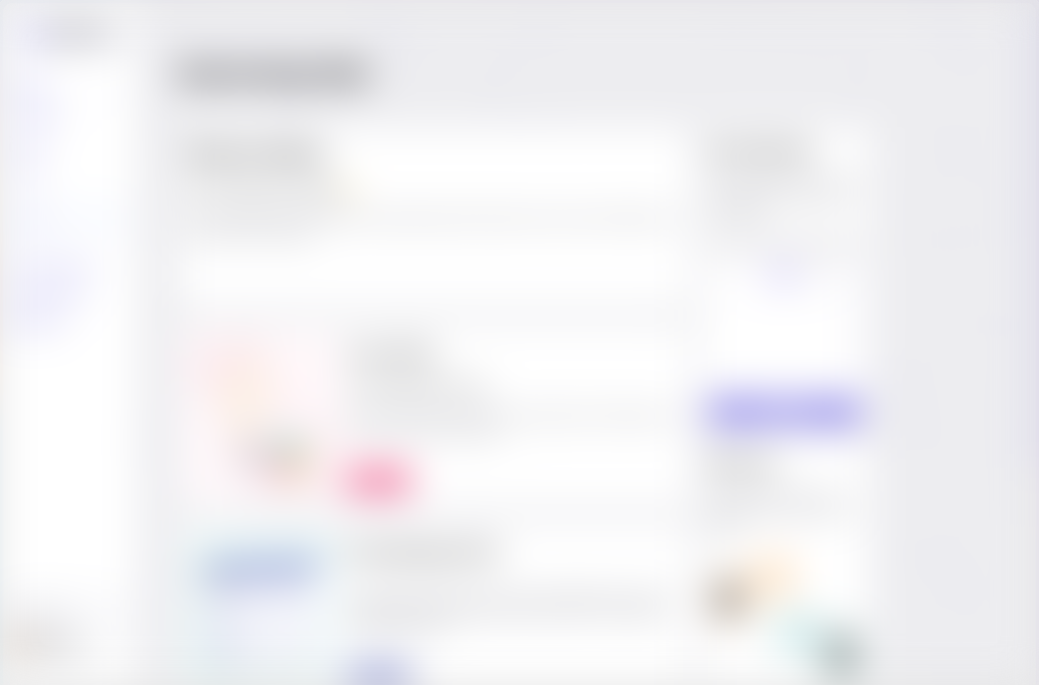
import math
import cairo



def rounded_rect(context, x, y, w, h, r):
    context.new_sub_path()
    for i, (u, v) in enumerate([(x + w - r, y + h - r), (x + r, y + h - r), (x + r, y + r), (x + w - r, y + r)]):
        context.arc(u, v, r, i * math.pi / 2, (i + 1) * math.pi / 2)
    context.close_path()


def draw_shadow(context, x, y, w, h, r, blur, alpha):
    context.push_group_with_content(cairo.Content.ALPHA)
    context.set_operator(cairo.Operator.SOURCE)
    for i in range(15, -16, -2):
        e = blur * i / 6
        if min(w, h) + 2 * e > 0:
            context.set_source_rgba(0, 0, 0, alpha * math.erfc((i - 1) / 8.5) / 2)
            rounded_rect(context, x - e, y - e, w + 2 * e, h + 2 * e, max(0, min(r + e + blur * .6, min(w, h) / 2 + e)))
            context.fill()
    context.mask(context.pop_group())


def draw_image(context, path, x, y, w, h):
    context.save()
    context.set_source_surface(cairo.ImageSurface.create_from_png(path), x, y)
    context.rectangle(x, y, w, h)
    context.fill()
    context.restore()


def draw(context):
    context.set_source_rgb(1, 1, 1)
    context.paint()
    rounded_rect(context, 8.5, 60.5, 15, 5, 1.5)
    context.set_source_rgb(118 / 255, 118 / 255, 118 / 255)
    context.set_line_width(1)
    context.stroke()
    draw_image(context, "images/5.png", 0, 0, 1039, 685)
    draw_image(context, "images/1.png", 0, 0, 1039, 685)
    draw_image(context, "images/2.png", 0, 0, 1039, 685)
    draw_image(context, "images/4.png", 9, 135, 24, 23)
    context.set_source_rgb(238 / 255, 238 / 255, 238 / 255)
    draw_shadow(context, 0, 0, 1039, 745, 0, 20, 1)
    context.set_source_rgb(230 / 255, 230 / 255, 230 / 255)
    draw_shadow(context, 0, 0, 1039, 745, 0, 20, 1)
    context.set_source_rgb(238 / 255, 238 / 255, 238 / 255)
    draw_shadow(context, 0, 0, 1039, 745, 0, 20, 1)
    context.set_source_rgb(230 / 255, 230 / 255, 230 / 255)
    draw_shadow(context, 0, 0, 1039, 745, 0, 20, 1)
    draw_image(context, "images/3.png", 0, 0, 1039, 685)


surface = cairo.ImageSurface(cairo.Format.RGB24, 1039, 685)
context = cairo.Context(surface)
options = cairo.FontOptions()
options.set_hint_metrics(cairo.HintMetrics.OFF)
options.set_hint_style(cairo.HintStyle.NONE)
context.set_font_options(options)
context.set_miter_limit(4)
draw(context)
surface.write_to_png("out.png")
